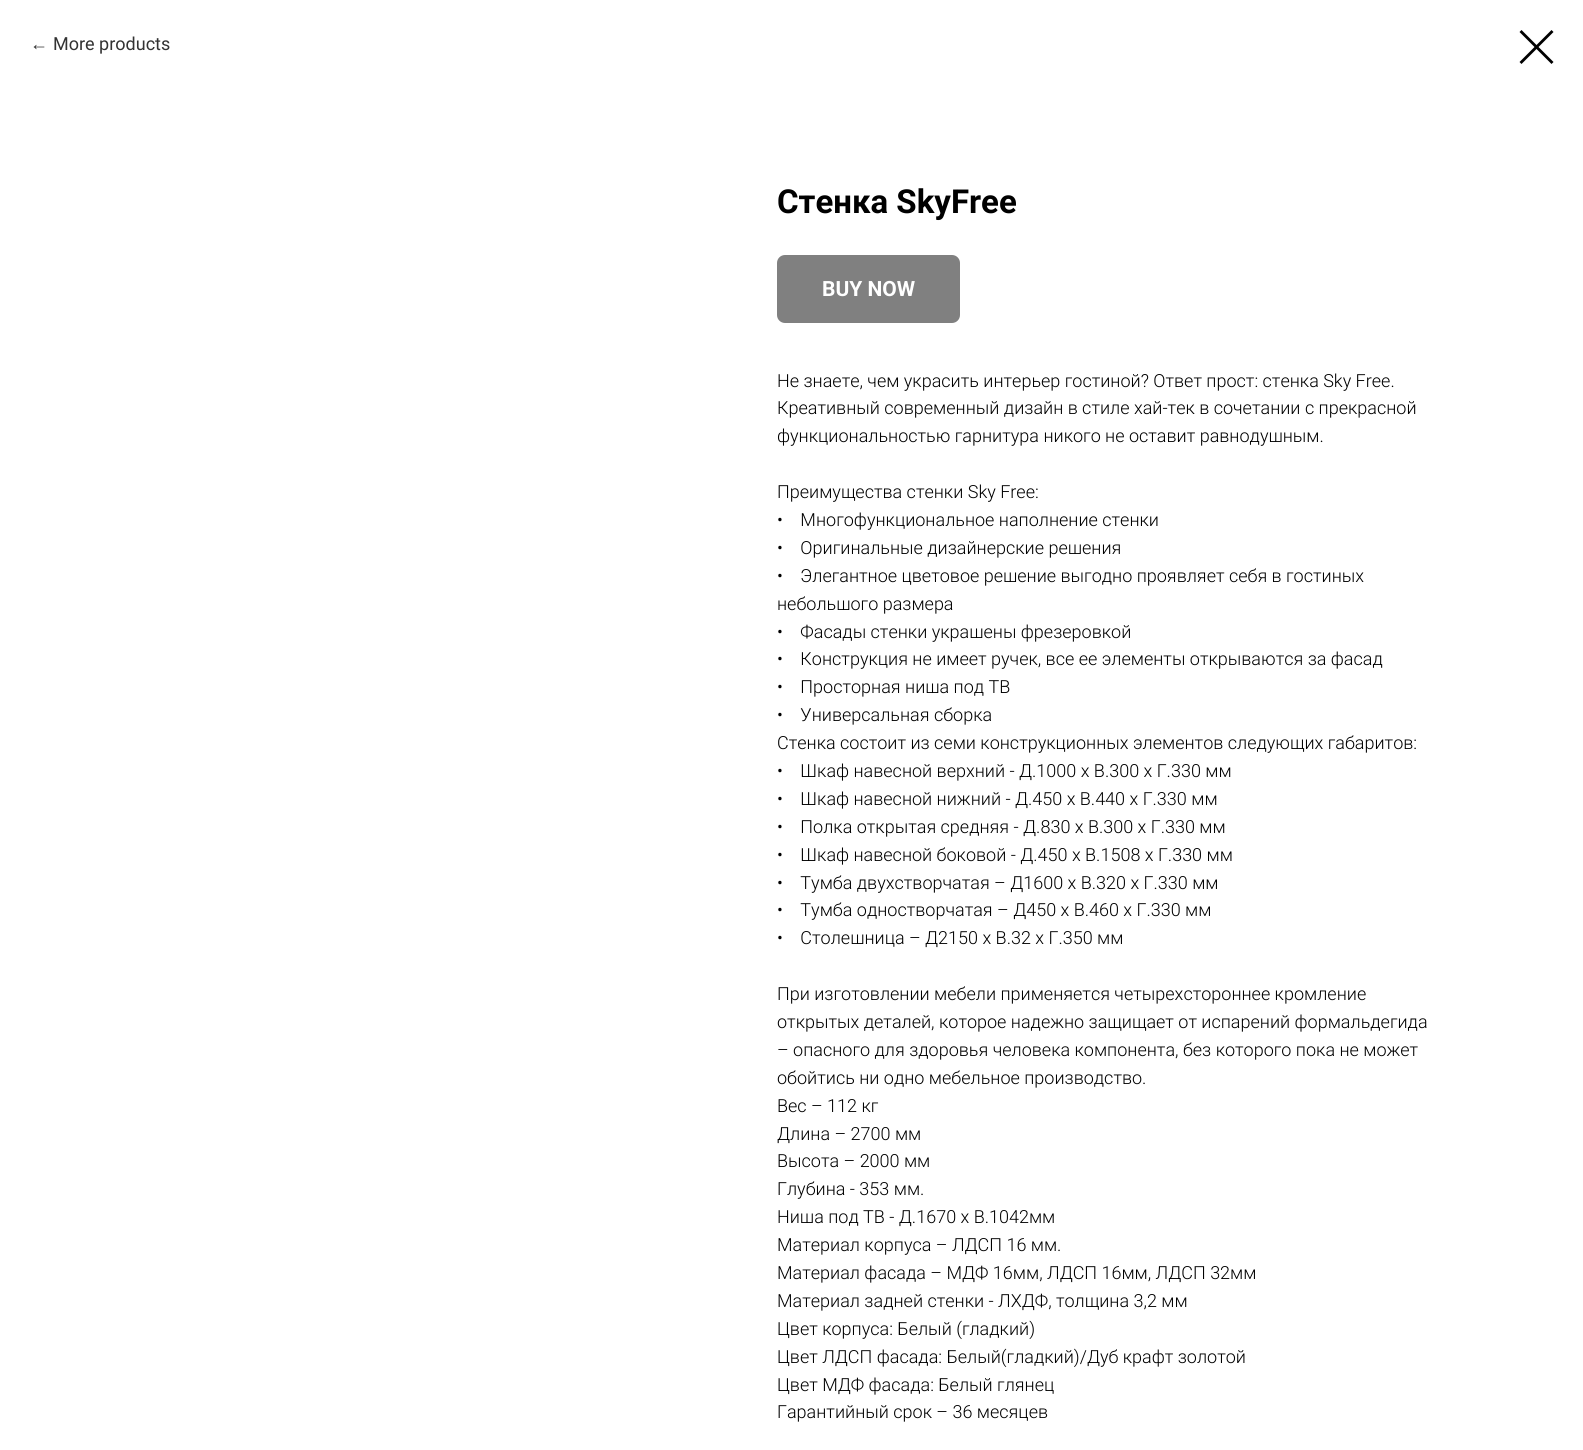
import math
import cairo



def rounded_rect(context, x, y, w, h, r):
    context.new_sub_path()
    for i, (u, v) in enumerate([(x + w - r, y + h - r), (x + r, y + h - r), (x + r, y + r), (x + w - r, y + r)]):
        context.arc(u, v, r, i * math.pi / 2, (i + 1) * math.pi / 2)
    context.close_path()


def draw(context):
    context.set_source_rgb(1, 1, 1)
    context.paint()
    context.set_source_rgb(0, 0, 0)
    context.set_fill_rule(cairo.FillRule.EVEN_ODD)
    context.new_path()
    context.move_to(1519.5, 32)
    context.line_to(1521.5, 30)
    context.line_to(1553.5, 62)
    context.line_to(1551.5, 64)
    context.close_path()
    context.fill()
    context.new_path()
    context.move_to(1551.5, 30)
    context.line_to(1553.5, 32)
    context.line_to(1521.5, 64)
    context.line_to(1519.5, 62)
    context.close_path()
    context.fill()
    context.set_source_rgb(128 / 255, 128 / 255, 128 / 255)
    rounded_rect(context, 777, 255, 183, 68, 8)
    context.fill()
    context.select_font_face("Liberation Sans")
    context.set_font_size(18)
    context.set_source_rgb(51 / 255, 51 / 255, 51 / 255)
    context.move_to(30, 50)
    context.show_text("←")
    context.select_font_face("Roboto")
    context.move_to(53, 50)
    context.show_text("More products")
    context.select_font_face("Roboto", cairo.FontSlant.NORMAL, cairo.FontWeight.BOLD)
    context.set_font_size(33)
    context.set_source_rgb(0, 0, 0)
    context.move_to(777, 213)
    context.show_text("Стенка SkyFree")
    context.set_font_size(21)
    context.set_source_rgb(1, 1, 1)
    context.move_to(822, 296)
    context.show_text("BUY NOW")
    context.select_font_face("Roboto Light")
    context.set_font_size(18)
    context.set_source_rgb(0, 0, 0)
    context.move_to(777, 387)
    context.show_text("Не знаете, чем украсить интерьер гостиной? Ответ прост: стенка Sky Free.")
    context.move_to(777, 414)
    context.show_text("Креативный современный дизайн в стиле хай-тек в сочетании с прекрасной")
    context.move_to(777, 442)
    context.show_text("функциональностью гарнитура никого не оставит равнодушным.")
    context.move_to(777, 498)
    context.show_text("Преимущества стенки Sky Free:")
    context.move_to(777, 526)
    context.show_text("•    Многофункциональное наполнение стенки")
    context.move_to(777, 554)
    context.show_text("•    Оригинальные дизайнерские решения")
    context.move_to(777, 582)
    context.show_text("•    Элегантное цветовое решение выгодно проявляет себя в гостиных")
    context.move_to(777, 610)
    context.show_text("небольшого размера")
    context.move_to(777, 638)
    context.show_text("•    Фасады стенки украшены фрезеровкой")
    context.move_to(777, 665)
    context.show_text("•    Конструкция не имеет ручек, все ее элементы открываются за фасад")
    context.move_to(777, 693)
    context.show_text("•    Просторная ниша под ТВ")
    context.move_to(777, 721)
    context.show_text("•    Универсальная сборка")
    context.move_to(777, 749)
    context.show_text("Стенка состоит из семи конструкционных элементов следующих габаритов:")
    context.move_to(777, 777)
    context.show_text("•    Шкаф навесной верхний - Д.1000 х В.300 х Г.330 мм")
    context.move_to(777, 805)
    context.show_text("•    Шкаф навесной нижний - Д.450 х В.440 х Г.330 мм")
    context.move_to(777, 833)
    context.show_text("•    Полка открытая средняя - Д.830 х В.300 х Г.330 мм")
    context.move_to(777, 861)
    context.show_text("•    Шкаф навесной боковой - Д.450 х В.1508 х Г.330 мм")
    context.move_to(777, 889)
    context.show_text("•    Тумба двухстворчатая – Д1600 х В.320 х Г.330 мм")
    context.move_to(777, 916)
    context.show_text("•    Тумба одностворчатая – Д450 х В.460 х Г.330 мм")
    context.move_to(777, 944)
    context.show_text("•    Столешница – Д2150 х В.32 х Г.350 мм")
    context.move_to(777, 1000)
    context.show_text("При изготовлении мебели применяется четырехстороннее кромление")
    context.move_to(777, 1028)
    context.show_text("открытых деталей, которое надежно защищает от испарений формальдегида")
    context.move_to(777, 1056)
    context.show_text("– опасного для здоровья человека компонента, без которого пока не может")
    context.move_to(777, 1084)
    context.show_text("обойтись ни одно мебельное производство.")
    context.move_to(777, 1112)
    context.show_text("Вес – 112 кг")
    context.move_to(777, 1140)
    context.show_text("Длина – 2700 мм")
    context.move_to(777, 1167)
    context.show_text("Высота – 2000 мм")
    context.move_to(777, 1195)
    context.show_text("Глубина - 353 мм.")
    context.move_to(777, 1223)
    context.show_text("Ниша под ТВ - Д.1670 х В.1042мм")
    context.move_to(777, 1251)
    context.show_text("Материал корпуса – ЛДСП 16 мм.")
    context.move_to(777, 1279)
    context.show_text("Материал фасада – МДФ 16мм, ЛДСП 16мм, ЛДСП 32мм")
    context.move_to(777, 1307)
    context.show_text("Материал задней стенки - ЛХДФ, толщина 3,2 мм")
    context.move_to(777, 1335)
    context.show_text("Цвет корпуса: Белый (гладкий)")
    context.move_to(777, 1363)
    context.show_text("Цвет ЛДСП фасада: Белый(гладкий)/Дуб крафт золотой")
    context.move_to(777, 1391)
    context.show_text("Цвет МДФ фасада: Белый глянец")
    context.move_to(777, 1418)
    context.show_text("Гарантийный срок – 36 месяцев")


surface = cairo.ImageSurface(cairo.Format.RGB24, 1583, 1450)
context = cairo.Context(surface)
options = cairo.FontOptions()
options.set_hint_metrics(cairo.HintMetrics.OFF)
options.set_hint_style(cairo.HintStyle.NONE)
context.set_font_options(options)
context.set_miter_limit(4)
draw(context)
surface.write_to_png("out.png")
